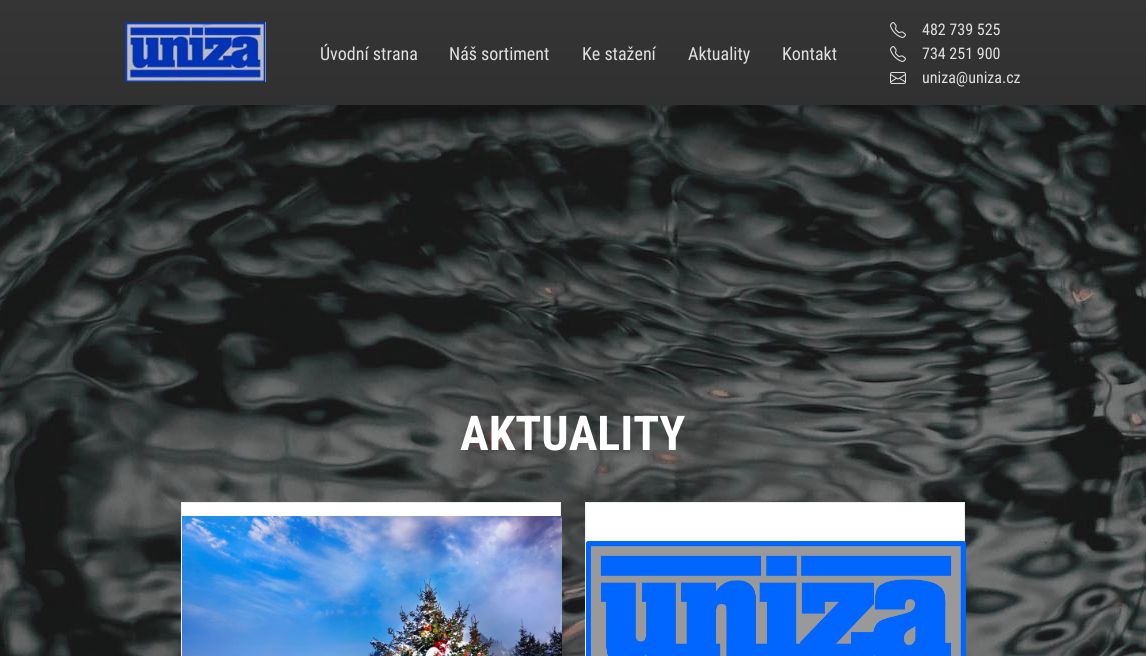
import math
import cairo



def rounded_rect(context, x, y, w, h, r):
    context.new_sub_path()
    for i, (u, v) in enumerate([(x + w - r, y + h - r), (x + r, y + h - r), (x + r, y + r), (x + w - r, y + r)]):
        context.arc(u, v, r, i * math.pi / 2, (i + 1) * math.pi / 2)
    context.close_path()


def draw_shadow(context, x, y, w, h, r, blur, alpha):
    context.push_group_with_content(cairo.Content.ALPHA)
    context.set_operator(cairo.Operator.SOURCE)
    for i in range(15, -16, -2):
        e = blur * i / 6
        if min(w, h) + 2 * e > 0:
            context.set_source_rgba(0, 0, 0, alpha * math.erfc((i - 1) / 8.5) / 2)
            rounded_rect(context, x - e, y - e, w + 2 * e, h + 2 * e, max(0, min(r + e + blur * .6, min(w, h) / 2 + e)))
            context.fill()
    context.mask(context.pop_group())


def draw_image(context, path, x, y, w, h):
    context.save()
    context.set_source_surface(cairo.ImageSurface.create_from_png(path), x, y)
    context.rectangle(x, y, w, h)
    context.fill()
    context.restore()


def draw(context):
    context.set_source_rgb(1, 1, 1)
    context.paint()
    draw_image(context, "images/1.png", 0, 105, 1146, 551)
    context.set_source_rgba(30 / 255, 30 / 255, 30 / 255, 0.5)
    context.rectangle(0, 105, 1146, 551)
    context.fill()
    context.set_source_rgb(0, 0, 0)
    draw_shadow(context, 0, 0, 1146, 105, 0, 20, 0.3)
    gradient = cairo.LinearGradient(573, 0, 573, 105)
    gradient.add_color_stop_rgba(0, 53 / 255, 53 / 255, 53 / 255, 1)
    gradient.add_color_stop_rgba(1, 48 / 255, 48 / 255, 48 / 255, 1)
    context.set_source(gradient)
    context.rectangle(0, 0, 1146, 105)
    context.fill()
    draw_image(context, "images/2.png", 125, 22, 141, 60)
    draw_image(context, "images/3.png", 890, 22, 16, 16)
    draw_image(context, "images/4.png", 890, 46, 16, 16)
    draw_image(context, "images/5.png", 890, 72, 16, 12)
    context.set_source_rgb(1, 1, 1)
    context.rectangle(182, 503, 378, 13)
    context.fill()
    context.rectangle(181.5, 502.5, 379, 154)
    context.set_source_rgb(238 / 255, 238 / 255, 238 / 255)
    context.set_line_width(1)
    context.stroke()
    draw_image(context, "images/6.png", 182, 516, 380, 140)
    context.set_source_rgb(1, 1, 1)
    context.rectangle(586, 503, 378, 41)
    context.fill()
    context.rectangle(585.5, 502.5, 379, 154)
    context.set_source_rgb(238 / 255, 238 / 255, 238 / 255)
    context.stroke()
    draw_image(context, "images/7.png", 586, 541, 380, 115)
    context.select_font_face("Roboto Condensed")
    context.set_font_size(18)
    context.set_source_rgb(224 / 255, 224 / 255, 224 / 255)
    context.move_to(320, 60)
    context.show_text("Úvodní strana")
    context.move_to(449, 60)
    context.show_text("Náš sortiment")
    context.move_to(582, 60)
    context.show_text("Ke stažení")
    context.move_to(688, 60)
    context.show_text("Aktuality")
    context.move_to(782, 60)
    context.show_text("Kontakt")
    context.set_font_size(16)
    context.move_to(922, 35)
    context.show_text("482 739 525")
    context.move_to(922, 59)
    context.show_text("734 251 900")
    context.move_to(922, 83)
    context.show_text("uniza@uniza.cz")
    context.select_font_face("Roboto Condensed", cairo.FontSlant.NORMAL, cairo.FontWeight.BOLD)
    context.set_font_size(48)
    context.set_source_rgb(1, 1, 1)
    context.move_to(460, 450)
    context.show_text("AKTUALITY")


surface = cairo.ImageSurface(cairo.Format.RGB24, 1146, 656)
context = cairo.Context(surface)
options = cairo.FontOptions()
options.set_hint_metrics(cairo.HintMetrics.OFF)
options.set_hint_style(cairo.HintStyle.NONE)
context.set_font_options(options)
context.set_miter_limit(4)
draw(context)
surface.write_to_png("out.png")
